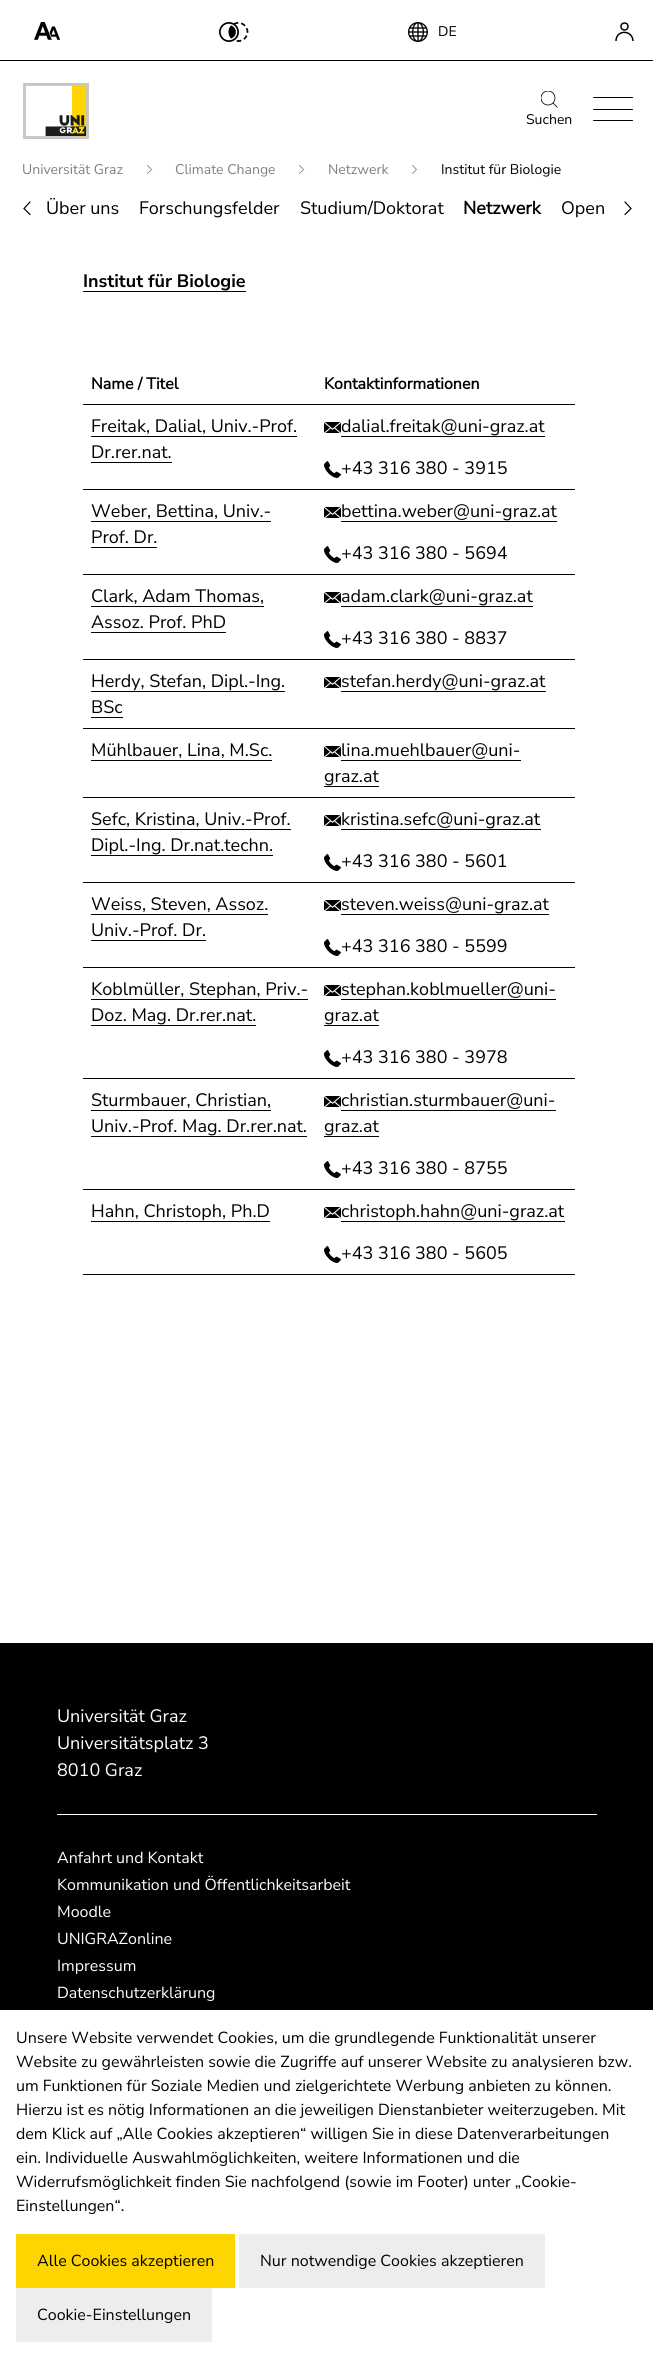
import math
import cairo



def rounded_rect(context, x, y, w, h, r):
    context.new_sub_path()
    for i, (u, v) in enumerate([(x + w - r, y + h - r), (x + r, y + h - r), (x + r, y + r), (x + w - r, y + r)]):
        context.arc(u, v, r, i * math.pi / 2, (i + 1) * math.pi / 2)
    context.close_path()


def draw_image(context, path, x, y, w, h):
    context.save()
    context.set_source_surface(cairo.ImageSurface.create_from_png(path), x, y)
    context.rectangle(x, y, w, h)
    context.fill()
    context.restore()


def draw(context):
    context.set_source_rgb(1, 1, 1)
    context.paint()
    context.set_source_rgb(0, 0, 0)
    context.rectangle(0, 60, 653, 1)
    context.fill()
    draw_image(context, "images/1.png", 34, 22, 26, 18)
    draw_image(context, "images/2.png", 219, 22, 30, 20)
    draw_image(context, "images/3.png", 408, 22, 20, 20)
    context.new_path()
    context.move_to(616, 41)
    context.curve_to(616, 29.5, 632.5, 29.5, 633, 41)
    context.set_line_width(1.5)
    context.stroke()
    context.arc(624.5, 26.5, 3.5, 0, 2 * math.pi)
    context.stroke()
    draw_image(context, "images/4.png", 23, 83, 66, 56)
    context.save()
    context.rectangle(541, 91, 17, 17)
    context.clip()
    context.arc(548, 98, 7, 0, 2 * math.pi)
    context.set_line_width(0.8)
    context.stroke()
    context.restore()
    context.new_path()
    context.move_to(553, 103)
    context.line_to(557.5, 107.5)
    context.set_line_width(0.8)
    context.stroke()
    rounded_rect(context, 593, 97, 40, 1, 0.5)
    context.fill()
    rounded_rect(context, 593, 109, 40, 1, 0.5)
    context.fill()
    rounded_rect(context, 593, 120, 40, 1, 0.5)
    context.fill()
    context.new_path()
    context.move_to(147.5, 173.5)
    context.line_to(151.5, 169.5)
    context.line_to(147.5, 165.5)
    context.set_source_rgb(128 / 255, 128 / 255, 128 / 255)
    context.set_line_cap(cairo.LineCap.ROUND)
    context.stroke()
    context.new_path()
    context.move_to(299.5, 173.5)
    context.line_to(303.5, 169.5)
    context.line_to(299.5, 165.5)
    context.stroke()
    context.new_path()
    context.move_to(412.5, 173.5)
    context.line_to(416.5, 169.5)
    context.line_to(412.5, 165.5)
    context.stroke()
    context.new_path()
    context.move_to(30, 214.5)
    context.line_to(24, 208.5)
    context.line_to(30, 202)
    context.set_source_rgb(0, 0, 0)
    context.set_line_width(1.2)
    context.stroke()
    context.new_path()
    context.move_to(625, 214.5)
    context.line_to(631, 208.5)
    context.line_to(625, 202)
    context.stroke()
    context.rectangle(83, 291, 163, 1)
    context.fill()
    context.rectangle(83, 404, 492, 1)
    context.fill()
    context.rectangle(91, 436, 206, 1)
    context.fill()
    context.rectangle(91, 462, 81, 1)
    context.fill()
    context.rectangle(83, 489, 492, 1)
    context.fill()
    draw_image(context, "images/5.png", 324, 422, 17, 11)
    context.rectangle(341, 436, 204, 1)
    context.fill()
    draw_image(context, "images/6.png", 324, 461, 17, 17)
    context.rectangle(91, 521, 180, 1)
    context.fill()
    context.rectangle(91, 547, 66, 1)
    context.fill()
    context.rectangle(83, 574, 492, 1)
    context.fill()
    draw_image(context, "images/5.png", 324, 507, 17, 11)
    context.rectangle(341, 521, 216, 1)
    context.fill()
    draw_image(context, "images/6.png", 324, 546, 17, 17)
    context.rectangle(91, 606, 173, 1)
    context.fill()
    context.rectangle(91, 632, 135, 1)
    context.fill()
    context.rectangle(83, 659, 492, 1)
    context.fill()
    draw_image(context, "images/5.png", 324, 592, 17, 11)
    context.rectangle(341, 606, 192, 1)
    context.fill()
    draw_image(context, "images/6.png", 324, 631, 17, 17)
    context.rectangle(91, 691, 194, 1)
    context.fill()
    context.rectangle(91, 717, 32, 1)
    context.fill()
    context.rectangle(83, 728, 492, 1)
    context.fill()
    draw_image(context, "images/5.png", 324, 677, 17, 11)
    context.rectangle(341, 691, 205, 1)
    context.fill()
    context.rectangle(91, 760, 181, 1)
    context.fill()
    context.rectangle(83, 797, 492, 1)
    context.fill()
    draw_image(context, "images/5.png", 324, 746, 17, 11)
    context.rectangle(341, 760, 180, 1)
    context.fill()
    context.rectangle(324, 786, 55, 1)
    context.fill()
    context.rectangle(91, 829, 200, 1)
    context.fill()
    context.rectangle(91, 855, 182, 1)
    context.fill()
    context.rectangle(83, 882, 492, 1)
    context.fill()
    draw_image(context, "images/5.png", 324, 815, 17, 11)
    context.rectangle(341, 829, 200, 1)
    context.fill()
    draw_image(context, "images/6.png", 324, 854, 17, 17)
    context.rectangle(91, 914, 177, 1)
    context.fill()
    context.rectangle(91, 940, 115, 1)
    context.fill()
    context.rectangle(83, 967, 492, 1)
    context.fill()
    draw_image(context, "images/5.png", 324, 900, 17, 11)
    context.rectangle(341, 914, 208, 1)
    context.fill()
    draw_image(context, "images/6.png", 324, 939, 17, 17)
    context.rectangle(91, 999, 217, 1)
    context.fill()
    context.rectangle(91, 1025, 165, 1)
    context.fill()
    context.rectangle(83, 1078, 492, 1)
    context.fill()
    draw_image(context, "images/5.png", 324, 985, 17, 11)
    context.rectangle(341, 999, 215, 1)
    context.fill()
    context.rectangle(324, 1025, 55, 1)
    context.fill()
    draw_image(context, "images/6.png", 324, 1050, 17, 17)
    context.rectangle(91, 1110, 180, 1)
    context.fill()
    context.rectangle(91, 1136, 216, 1)
    context.fill()
    context.rectangle(83, 1189, 492, 1)
    context.fill()
    draw_image(context, "images/5.png", 324, 1096, 17, 11)
    context.rectangle(341, 1110, 215, 1)
    context.fill()
    context.rectangle(324, 1136, 55, 1)
    context.fill()
    draw_image(context, "images/6.png", 324, 1161, 17, 17)
    context.rectangle(91, 1221, 179, 1)
    context.fill()
    context.rectangle(83, 1274, 492, 1)
    context.fill()
    draw_image(context, "images/5.png", 324, 1207, 17, 11)
    context.rectangle(341, 1221, 224, 1)
    context.fill()
    draw_image(context, "images/6.png", 324, 1246, 17, 17)
    context.rectangle(0, 1643, 653, 367)
    context.fill()
    context.set_source_rgb(1, 1, 1)
    context.rectangle(57, 1814, 540, 1)
    context.fill()
    context.set_source_rgb(1, 213 / 255, 0)
    context.rectangle(16, 2234, 219, 54)
    context.fill()
    context.set_source_rgb(237 / 255, 237 / 255, 237 / 255)
    context.rectangle(239, 2234, 306, 54)
    context.fill()
    context.rectangle(16, 2288, 196, 54)
    context.fill()
    context.select_font_face("Nunito Sans")
    context.set_font_size(14)
    context.set_source_rgb(0, 0, 0)
    context.move_to(438, 36)
    context.show_text("DE")
    context.move_to(526, 124)
    context.show_text("Suchen")
    context.set_source_rgb(128 / 255, 128 / 255, 128 / 255)
    context.move_to(22, 174)
    context.show_text("Universität Graz")
    context.move_to(175, 174)
    context.show_text("Climate Change")
    context.move_to(328, 174)
    context.show_text("Netzwerk")
    context.set_source_rgb(0, 0, 0)
    context.move_to(441, 174)
    context.show_text("Institut für Biologie")
    context.set_font_size(18)
    context.move_to(46, 214)
    context.show_text("Über uns")
    context.move_to(139, 214)
    context.show_text("Forschungsfelder")
    context.move_to(300, 214)
    context.show_text("Studium/Doktorat")
    context.select_font_face("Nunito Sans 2", cairo.FontSlant.NORMAL, cairo.FontWeight.BOLD)
    context.move_to(463, 214)
    context.show_text("Netzwerk")
    context.select_font_face("Nunito Sans")
    context.move_to(561, 214)
    context.show_text("Open")
    context.select_font_face("Nunito Sans", cairo.FontSlant.NORMAL, cairo.FontWeight.BOLD)
    context.move_to(83, 287)
    context.show_text("Institut für Biologie")
    context.select_font_face("Nunito Sans 2", cairo.FontSlant.NORMAL, cairo.FontWeight.BOLD)
    context.set_font_size(16)
    context.move_to(91, 389)
    context.show_text("Name / Titel")
    context.move_to(324, 389)
    context.show_text("Kontaktinformationen")
    context.select_font_face("Nunito Sans")
    context.set_font_size(18)
    context.move_to(91, 432)
    context.show_text("Freitak, Dalial, Univ.-Prof.")
    context.move_to(91, 458)
    context.show_text("Dr.rer.nat.")
    context.move_to(341, 432)
    context.show_text("dalial.freitak@uni-graz.at")
    context.move_to(341, 474)
    context.show_text("+43 316 380 - 3915")
    context.move_to(91, 517)
    context.show_text("Weber, Bettina, Univ.-")
    context.move_to(91, 543)
    context.show_text("Prof. Dr.")
    context.move_to(341, 517)
    context.show_text("bettina.weber@uni-graz.at")
    context.move_to(341, 559)
    context.show_text("+43 316 380 - 5694")
    context.move_to(91, 602)
    context.show_text("Clark, Adam Thomas,")
    context.move_to(91, 628)
    context.show_text("Assoz. Prof. PhD")
    context.move_to(341, 602)
    context.show_text("adam.clark@uni-graz.at")
    context.move_to(341, 644)
    context.show_text("+43 316 380 - 8837")
    context.move_to(91, 687)
    context.show_text("Herdy, Stefan, Dipl.-Ing.")
    context.move_to(91, 713)
    context.show_text("BSc")
    context.move_to(341, 687)
    context.show_text("stefan.herdy@uni-graz.at")
    context.move_to(91, 756)
    context.show_text("Mühlbauer, Lina, M.Sc.")
    context.move_to(341, 756)
    context.show_text("lina.muehlbauer@uni-")
    context.move_to(324, 782)
    context.show_text("graz.at")
    context.move_to(91, 825)
    context.show_text("Sefc, Kristina, Univ.-Prof.")
    context.move_to(91, 851)
    context.show_text("Dipl.-Ing. Dr.nat.techn.")
    context.move_to(341, 825)
    context.show_text("kristina.sefc@uni-graz.at")
    context.move_to(341, 867)
    context.show_text("+43 316 380 - 5601")
    context.move_to(91, 910)
    context.show_text("Weiss, Steven, Assoz.")
    context.move_to(91, 936)
    context.show_text("Univ.-Prof. Dr.")
    context.move_to(341, 910)
    context.show_text("steven.weiss@uni-graz.at")
    context.move_to(341, 952)
    context.show_text("+43 316 380 - 5599")
    context.move_to(91, 995)
    context.show_text("Koblmüller, Stephan, Priv.-")
    context.move_to(91, 1021)
    context.show_text("Doz. Mag. Dr.rer.nat.")
    context.move_to(341, 995)
    context.show_text("stephan.koblmueller@uni-")
    context.move_to(324, 1021)
    context.show_text("graz.at")
    context.move_to(341, 1063)
    context.show_text("+43 316 380 - 3978")
    context.move_to(91, 1106)
    context.show_text("Sturmbauer, Christian,")
    context.move_to(91, 1132)
    context.show_text("Univ.-Prof. Mag. Dr.rer.nat.")
    context.move_to(341, 1106)
    context.show_text("christian.sturmbauer@uni-")
    context.move_to(324, 1132)
    context.show_text("graz.at")
    context.move_to(341, 1174)
    context.show_text("+43 316 380 - 8755")
    context.move_to(91, 1217)
    context.show_text("Hahn, Christoph, Ph.D")
    context.move_to(341, 1217)
    context.show_text("christoph.hahn@uni-graz.at")
    context.move_to(341, 1259)
    context.show_text("+43 316 380 - 5605")
    context.set_source_rgb(1, 1, 1)
    context.move_to(57, 1722)
    context.show_text("Universität Graz")
    context.move_to(57, 1749)
    context.show_text("Universitätsplatz 3")
    context.move_to(57, 1776)
    context.show_text("8010 Graz")
    context.set_font_size(16)
    context.move_to(57, 1863)
    context.show_text("Anfahrt und Kontakt")
    context.move_to(57, 1890)
    context.show_text("Kommunikation und Öffentlichkeitsarbeit")
    context.move_to(57, 1917)
    context.show_text("Moodle")
    context.move_to(57, 1944)
    context.show_text("UNIGRAZonline")
    context.move_to(57, 1971)
    context.show_text("Impressum")
    context.move_to(57, 1998)
    context.show_text("Datenschutzerklärung")
    context.set_source_rgb(0, 0, 0)
    context.move_to(16, 2043)
    context.show_text("Unsere Website verwendet Cookies, um die grundlegende Funktionalität unserer")
    context.move_to(16, 2067)
    context.show_text("Website zu gewährleisten sowie die Zugriffe auf unserer Website zu analysieren bzw.")
    context.move_to(16, 2091)
    context.show_text("um Funktionen für Soziale Medien und zielgerichtete Werbung anbieten zu können.")
    context.move_to(16, 2115)
    context.show_text("Hierzu ist es nötig Informationen an die jeweiligen Dienstanbieter weiterzugeben. Mit")
    context.move_to(16, 2139)
    context.show_text("dem Klick auf „Alle Cookies akzeptieren“ willigen Sie in diese Datenverarbeitungen")
    context.move_to(16, 2163)
    context.show_text("ein. Individuelle Auswahlmöglichkeiten, weitere Informationen und die")
    context.move_to(16, 2187)
    context.show_text("Widerrufsmöglichkeit finden Sie nachfolgend (sowie im Footer) unter „Cookie-")
    context.move_to(16, 2211)
    context.show_text("Einstellungen“.")
    context.move_to(37, 2266)
    context.show_text("Alle Cookies akzeptieren")
    context.move_to(260, 2266)
    context.show_text("Nur notwendige Cookies akzeptieren")
    context.move_to(37, 2320)
    context.show_text("Cookie-Einstellungen")


surface = cairo.ImageSurface(cairo.Format.RGB24, 653, 2358)
context = cairo.Context(surface)
options = cairo.FontOptions()
options.set_hint_metrics(cairo.HintMetrics.OFF)
options.set_hint_style(cairo.HintStyle.NONE)
context.set_font_options(options)
context.set_miter_limit(4)
draw(context)
surface.write_to_png("out.png")
